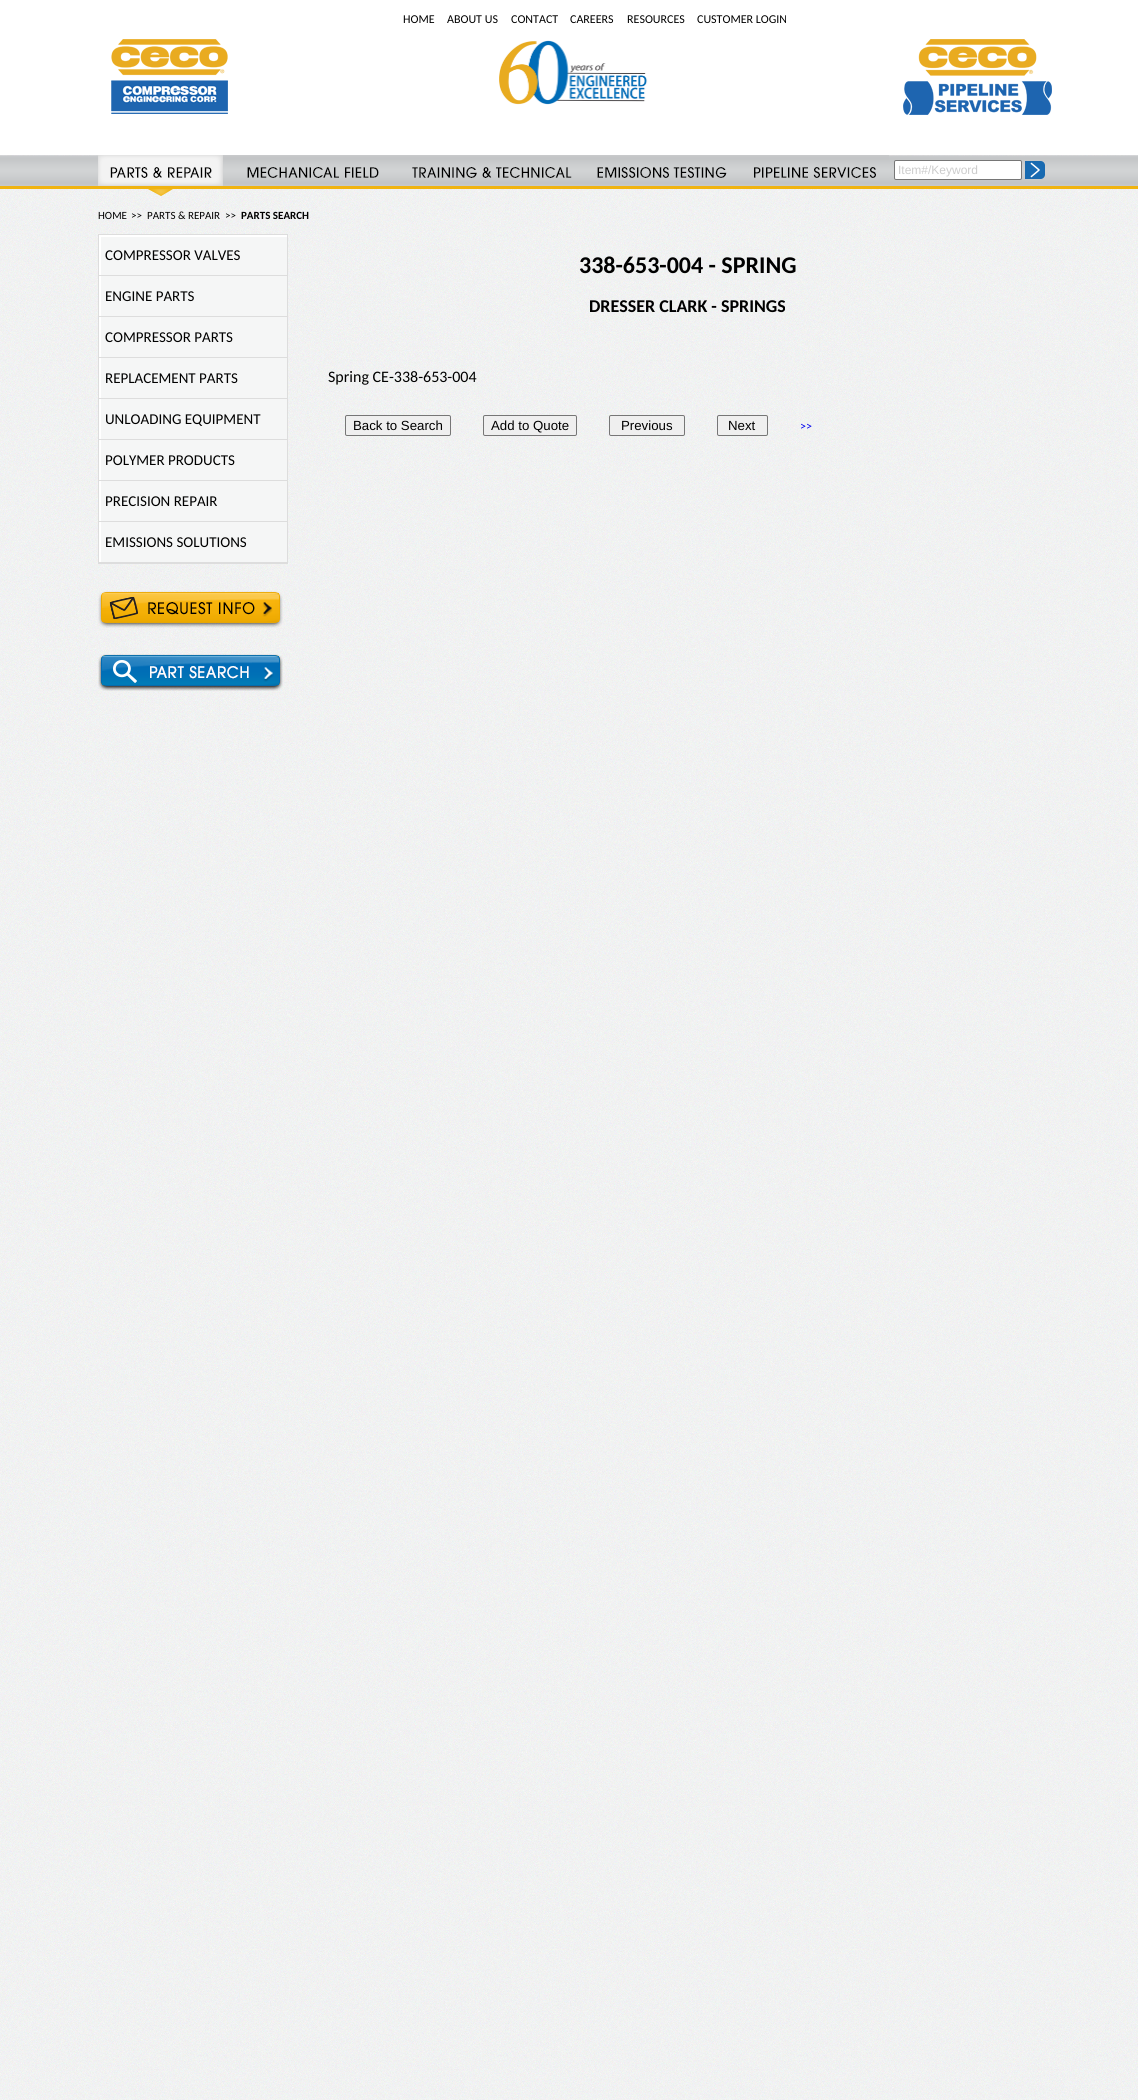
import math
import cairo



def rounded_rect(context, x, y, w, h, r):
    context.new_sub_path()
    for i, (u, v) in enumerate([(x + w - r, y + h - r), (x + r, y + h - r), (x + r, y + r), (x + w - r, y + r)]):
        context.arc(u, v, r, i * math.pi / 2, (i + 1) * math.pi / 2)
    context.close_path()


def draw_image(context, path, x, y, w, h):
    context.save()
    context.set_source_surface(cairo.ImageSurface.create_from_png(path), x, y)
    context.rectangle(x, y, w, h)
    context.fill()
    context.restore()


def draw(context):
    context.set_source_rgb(1, 1, 1)
    context.paint()
    draw_image(context, "images/1.png", 0, 155, 1138, 1945)
    draw_image(context, "images/2.png", 111, 39, 117, 75)
    draw_image(context, "images/3.png", 499, 40, 149, 65)
    draw_image(context, "images/4.png", 903, 39, 149, 76)
    draw_image(context, "images/5.png", 0, 155, 1138, 34)
    draw_image(context, "images/6.png", 98, 155, 125, 41)
    draw_image(context, "images/7.png", 223, 155, 178, 23)
    draw_image(context, "images/8.png", 401, 155, 180, 23)
    draw_image(context, "images/9.png", 581, 155, 161, 23)
    draw_image(context, "images/10.png", 742, 155, 147, 23)
    context.set_source_rgb(1, 1, 1)
    rounded_rect(context, 894.5, 160.5, 127, 19, 1.5)
    context.fill_preserve()
    context.set_source_rgb(118 / 255, 118 / 255, 118 / 255)
    context.set_line_width(1)
    context.stroke()
    draw_image(context, "images/11.png", 1025, 161, 20, 18)
    context.set_source_rgb(245 / 255, 246 / 255, 246 / 255)
    context.rectangle(101, 237, 186, 325)
    context.fill()
    context.save()
    context.rectangle(99, 235, 188, 328)
    context.clip()
    context.set_source_rgb(1, 1, 1)
    context.set_fill_rule(cairo.FillRule.EVEN_ODD)
    context.new_path()
    context.move_to(0, 136)
    context.line_to(386, 136)
    context.line_to(386, 662)
    context.line_to(0, 662)
    context.close_path()
    context.move_to(101, 237)
    context.line_to(287, 237)
    context.line_to(287, 563)
    context.line_to(101, 563)
    context.close_path()
    context.fill()
    context.restore()
    context.rectangle(98.5, 234.5, 189, 329)
    context.set_source_rgb(221 / 255, 221 / 255, 221 / 255)
    context.stroke()
    context.rectangle(99, 275, 188, 1)
    context.fill()
    context.rectangle(99, 316, 188, 1)
    context.fill()
    context.rectangle(99, 357, 188, 1)
    context.fill()
    context.rectangle(99, 398, 188, 1)
    context.fill()
    context.rectangle(99, 439, 188, 1)
    context.fill()
    context.rectangle(99, 480, 188, 1)
    context.fill()
    context.rectangle(99, 521, 188, 1)
    context.fill()
    context.rectangle(99, 562, 188, 1)
    context.fill()
    draw_image(context, "images/12.png", 98, 591, 185, 37)
    draw_image(context, "images/13.png", 98, 654, 185, 37)
    context.set_source_rgb(239 / 255, 239 / 255, 239 / 255)
    rounded_rect(context, 345.5, 415.5, 105, 20, 1.5)
    context.fill_preserve()
    context.set_source_rgb(118 / 255, 118 / 255, 118 / 255)
    context.stroke()
    context.set_source_rgb(239 / 255, 239 / 255, 239 / 255)
    rounded_rect(context, 483.5, 415.5, 93, 20, 1.5)
    context.fill_preserve()
    context.set_source_rgb(118 / 255, 118 / 255, 118 / 255)
    context.stroke()
    context.set_source_rgb(239 / 255, 239 / 255, 239 / 255)
    rounded_rect(context, 609.5, 415.5, 75, 20, 1.5)
    context.fill_preserve()
    context.set_source_rgb(118 / 255, 118 / 255, 118 / 255)
    context.stroke()
    context.set_source_rgb(239 / 255, 239 / 255, 239 / 255)
    rounded_rect(context, 717.5, 415.5, 50, 20, 1.5)
    context.fill_preserve()
    context.set_source_rgb(118 / 255, 118 / 255, 118 / 255)
    context.stroke()
    context.select_font_face("Carlito")
    context.set_font_size(12)
    context.set_source_rgb(0, 0, 0)
    context.move_to(403, 23)
    context.show_text("HOME")
    context.move_to(447, 23)
    context.show_text("ABOUT US")
    context.move_to(511, 23)
    context.show_text("CONTACT")
    context.move_to(570, 23)
    context.show_text("CAREERS")
    context.move_to(627, 23)
    context.show_text("RESOURCES")
    context.move_to(697, 23)
    context.show_text("CUSTOMER LOGIN")
    context.select_font_face("Liberation Sans")
    context.set_source_rgb(204 / 255, 204 / 255, 204 / 255)
    context.move_to(898, 174)
    context.show_text("Item#/Keyword")
    context.select_font_face("Carlito")
    context.set_font_size(11)
    context.set_source_rgb(0, 0, 0)
    context.move_to(98, 219)
    context.show_text("HOME")
    context.move_to(131, 219)
    context.show_text(">>")
    context.move_to(147, 219)
    context.show_text("PARTS & REPAIR")
    context.move_to(225, 219)
    context.show_text(">>")
    context.select_font_face("Carlito", cairo.FontSlant.NORMAL, cairo.FontWeight.BOLD)
    context.move_to(241, 219)
    context.show_text("PARTS SEARCH")
    context.select_font_face("Carlito")
    context.set_font_size(15)
    context.move_to(105, 260)
    context.show_text("COMPRESSOR VALVES")
    context.move_to(105, 301)
    context.show_text("ENGINE PARTS")
    context.move_to(105, 342)
    context.show_text("COMPRESSOR PARTS")
    context.move_to(105, 383)
    context.show_text("REPLACEMENT PARTS")
    context.move_to(105, 424)
    context.show_text("UNLOADING EQUIPMENT")
    context.move_to(105, 465)
    context.show_text("POLYMER PRODUCTS")
    context.move_to(105, 506)
    context.show_text("PRECISION REPAIR")
    context.move_to(105, 547)
    context.show_text("EMISSIONS SOLUTIONS")
    context.select_font_face("Carlito", cairo.FontSlant.NORMAL, cairo.FontWeight.BOLD)
    context.set_font_size(24)
    context.move_to(579, 273)
    context.show_text("338-653-004 - SPRING")
    context.set_font_size(18)
    context.move_to(589, 312)
    context.show_text("DRESSER CLARK - SPRINGS")
    context.select_font_face("Carlito")
    context.set_font_size(16)
    context.move_to(328, 382)
    context.show_text("Spring CE-338-653-004")
    context.select_font_face("Liberation Sans")
    context.set_font_size(13.25)
    context.move_to(353, 430)
    context.show_text("Back to Search")
    context.move_to(491, 430)
    context.show_text("Add to Quote")
    context.move_to(621, 430)
    context.show_text("Previous")
    context.move_to(728, 430)
    context.show_text("Next")
    context.select_font_face("Carlito")
    context.set_font_size(12)
    context.set_source_rgb(0, 0, 238 / 255)
    context.move_to(800, 430)
    context.show_text(">>")


surface = cairo.ImageSurface(cairo.Format.RGB24, 1138, 2100)
context = cairo.Context(surface)
options = cairo.FontOptions()
options.set_hint_metrics(cairo.HintMetrics.OFF)
options.set_hint_style(cairo.HintStyle.NONE)
context.set_font_options(options)
context.set_miter_limit(4)
draw(context)
surface.write_to_png("out.png")
